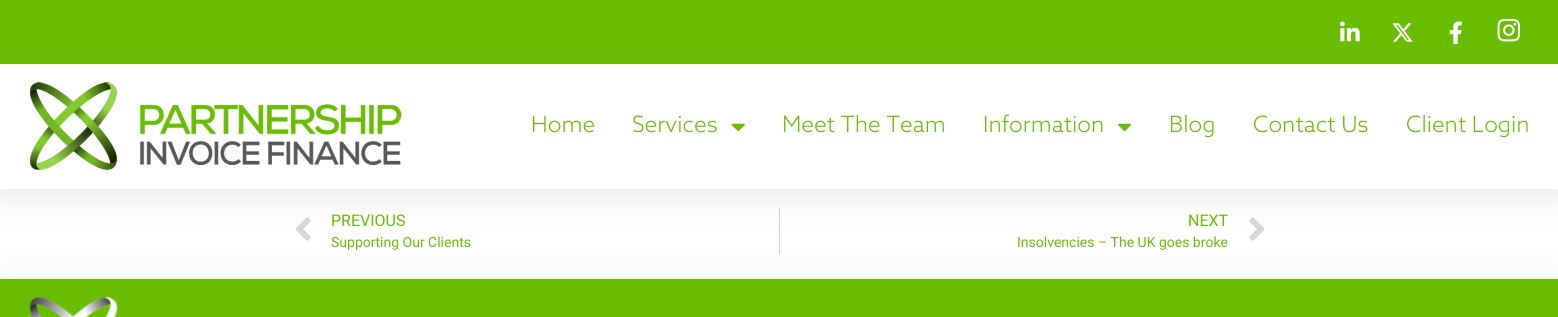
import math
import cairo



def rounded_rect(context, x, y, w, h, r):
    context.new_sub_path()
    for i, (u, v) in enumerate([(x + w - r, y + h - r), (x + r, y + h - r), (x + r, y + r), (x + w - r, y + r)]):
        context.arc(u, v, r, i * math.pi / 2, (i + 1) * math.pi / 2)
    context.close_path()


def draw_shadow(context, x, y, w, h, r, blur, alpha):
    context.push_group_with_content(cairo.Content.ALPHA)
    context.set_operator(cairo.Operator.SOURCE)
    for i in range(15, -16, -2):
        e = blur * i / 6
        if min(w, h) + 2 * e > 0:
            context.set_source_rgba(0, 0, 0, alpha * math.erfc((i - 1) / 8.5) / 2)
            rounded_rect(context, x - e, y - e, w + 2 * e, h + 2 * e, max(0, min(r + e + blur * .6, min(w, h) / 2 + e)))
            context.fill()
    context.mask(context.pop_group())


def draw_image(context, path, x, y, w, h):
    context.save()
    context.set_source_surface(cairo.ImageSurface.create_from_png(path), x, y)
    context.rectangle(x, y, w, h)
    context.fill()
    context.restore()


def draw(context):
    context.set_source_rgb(1, 1, 1)
    context.paint()
    draw_image(context, "images/8.png", 295, 217, 16, 24)
    context.set_source_rgb(213 / 255, 216 / 255, 220 / 255)
    context.rectangle(779, 209, 1, 45)
    context.fill()
    draw_image(context, "images/9.png", 1249, 217, 16, 24)
    context.set_source_rgb(0, 0, 0)
    draw_shadow(context, 0, 6, 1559, 189, 0, 19, 0.1)
    context.set_source_rgb(105 / 255, 190 / 255, 4 / 255)
    context.rectangle(0, 0, 1558, 64)
    context.fill()
    draw_image(context, "images/1.png", 1340, 21, 20, 21)
    draw_image(context, "images/2.png", 1392, 23, 21, 19)
    draw_image(context, "images/3.png", 1449, 21, 13, 24)
    draw_image(context, "images/4.png", 1497, 18, 24, 24)
    context.set_source_rgb(1, 1, 1)
    context.rectangle(0, 64, 1558, 125)
    context.fill()
    draw_image(context, "images/5.png", 30, 82, 372, 88)
    draw_image(context, "images/6.png", 731, 123, 14, 9)
    draw_image(context, "images/7.png", 1118, 123, 13, 9)
    context.set_source_rgb(0, 0, 0)
    draw_shadow(context, 0, 285, 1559, 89, 0, 19, 0.1)
    context.set_source_rgb(105 / 255, 190 / 255, 4 / 255)
    context.rectangle(0, 279, 1558, 38)
    context.fill()
    draw_image(context, "images/10.png", 29, 297, 89, 20)
    context.select_font_face("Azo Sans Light")
    context.set_font_size(22.5)
    context.move_to(531, 132)
    context.show_text("Home")
    context.move_to(632, 132)
    context.show_text("Services")
    context.move_to(782, 132)
    context.show_text("Meet The Team")
    context.move_to(983, 132)
    context.show_text("Information")
    context.move_to(1169, 132)
    context.show_text("Blog")
    context.move_to(1253, 132)
    context.show_text("Contact Us")
    context.move_to(1406, 132)
    context.show_text("Client Login")
    context.select_font_face("Roboto")
    context.set_font_size(16)
    context.move_to(331, 226)
    context.show_text("PREVIOUS")
    context.set_font_size(14)
    context.move_to(331, 247)
    context.show_text("Supporting Our Clients")
    context.set_font_size(16)
    context.move_to(1188, 226)
    context.show_text("NEXT")
    context.set_font_size(14)
    context.move_to(1017, 247)
    context.show_text("Insolvencies – The UK goes broke")


surface = cairo.ImageSurface(cairo.Format.RGB24, 1558, 317)
context = cairo.Context(surface)
options = cairo.FontOptions()
options.set_hint_metrics(cairo.HintMetrics.OFF)
options.set_hint_style(cairo.HintStyle.NONE)
context.set_font_options(options)
context.set_miter_limit(4)
draw(context)
surface.write_to_png("out.png")
